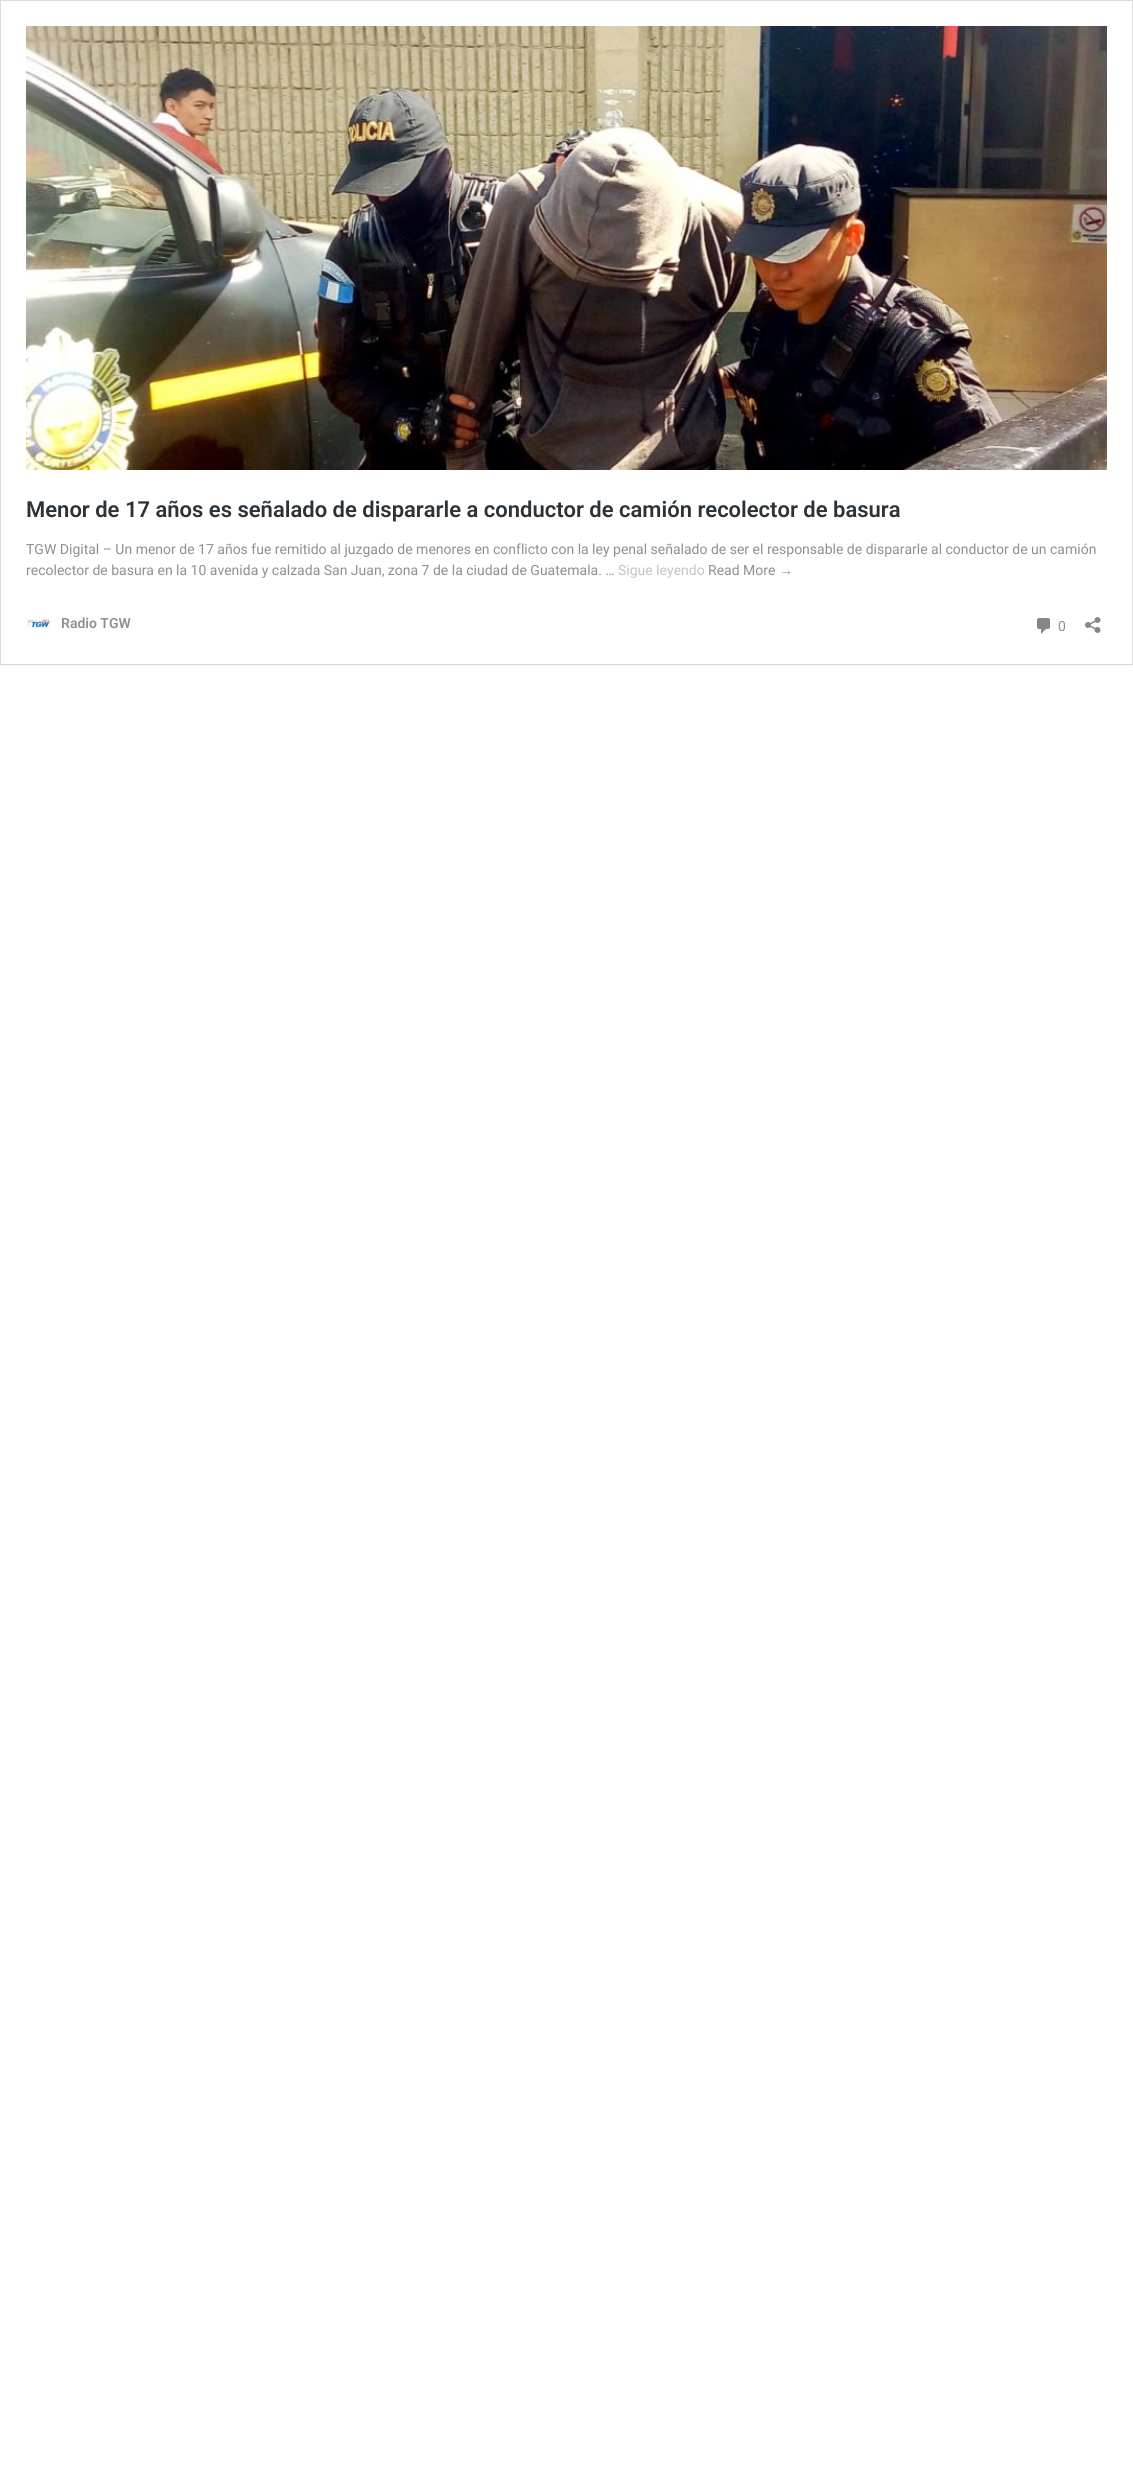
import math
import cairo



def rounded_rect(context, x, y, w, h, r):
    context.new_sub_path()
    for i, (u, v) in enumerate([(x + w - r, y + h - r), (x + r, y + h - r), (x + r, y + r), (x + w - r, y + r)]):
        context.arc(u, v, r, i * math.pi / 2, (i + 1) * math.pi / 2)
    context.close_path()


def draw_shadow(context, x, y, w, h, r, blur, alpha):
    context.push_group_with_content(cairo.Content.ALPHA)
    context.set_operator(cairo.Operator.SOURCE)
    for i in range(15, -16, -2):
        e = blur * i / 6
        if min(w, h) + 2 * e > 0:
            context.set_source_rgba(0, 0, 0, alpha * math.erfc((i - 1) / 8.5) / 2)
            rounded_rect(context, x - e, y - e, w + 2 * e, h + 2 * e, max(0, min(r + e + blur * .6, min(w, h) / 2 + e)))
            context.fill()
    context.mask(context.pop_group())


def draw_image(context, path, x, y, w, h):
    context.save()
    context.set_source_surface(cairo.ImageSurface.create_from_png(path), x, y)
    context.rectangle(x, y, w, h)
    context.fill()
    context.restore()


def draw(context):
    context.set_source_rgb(1, 1, 1)
    context.paint()
    context.save()
    context.rectangle(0, 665, 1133, 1)
    context.clip()
    context.set_source_rgb(0, 0, 0)
    draw_shadow(context, 0, 1, 1133, 665, 0, 0.5, 0.05)
    context.restore()
    context.rectangle(0.5, 0.5, 1132, 664)
    context.set_source_rgb(220 / 255, 220 / 255, 222 / 255)
    context.set_line_width(1)
    context.stroke()
    draw_image(context, "images/1.png", 26, 26, 1081, 444)
    draw_image(context, "images/2.png", 26, 618, 25, 12)
    draw_image(context, "images/3.png", 1037, 618, 13, 16)
    draw_image(context, "images/4.png", 1085, 617, 16, 16)
    context.select_font_face("Roboto SemiBold")
    context.set_font_size(22)
    context.set_source_rgb(44 / 255, 51 / 255, 56 / 255)
    context.move_to(26, 517)
    context.show_text("Menor de 17 años es señalado de dispararle a conductor de camión recolector de basura")
    context.select_font_face("Roboto")
    context.set_font_size(14)
    context.set_source_rgb(140 / 255, 143 / 255, 148 / 255)
    context.move_to(26, 554)
    context.show_text("TGW Digital – Un menor de 17 años fue remitido al juzgado de menores en conflicto con la ley penal señalado de ser el responsable de dispararle al conductor de un camión")
    context.move_to(26, 575)
    context.show_text("recolector de basura en la 10 avenida y calzada San Juan, zona 7 de la ciudad de Guatemala. …")
    context.set_source_rgb(195 / 255, 196 / 255, 199 / 255)
    context.move_to(618, 575)
    context.show_text("Sigue leyendo")
    context.set_source_rgb(140 / 255, 143 / 255, 148 / 255)
    context.move_to(708, 575)
    context.show_text("Read More")
    context.select_font_face("Liberation Sans")
    context.move_to(779, 575)
    context.show_text("→")
    context.select_font_face("Roboto SemiBold")
    context.move_to(61, 628)
    context.show_text("Radio TGW")
    context.select_font_face("Roboto")
    context.move_to(1058, 631)
    context.show_text("0")


surface = cairo.ImageSurface(cairo.Format.RGB24, 1133, 2492)
context = cairo.Context(surface)
options = cairo.FontOptions()
options.set_hint_metrics(cairo.HintMetrics.OFF)
options.set_hint_style(cairo.HintStyle.NONE)
context.set_font_options(options)
context.set_miter_limit(4)
draw(context)
surface.write_to_png("out.png")
